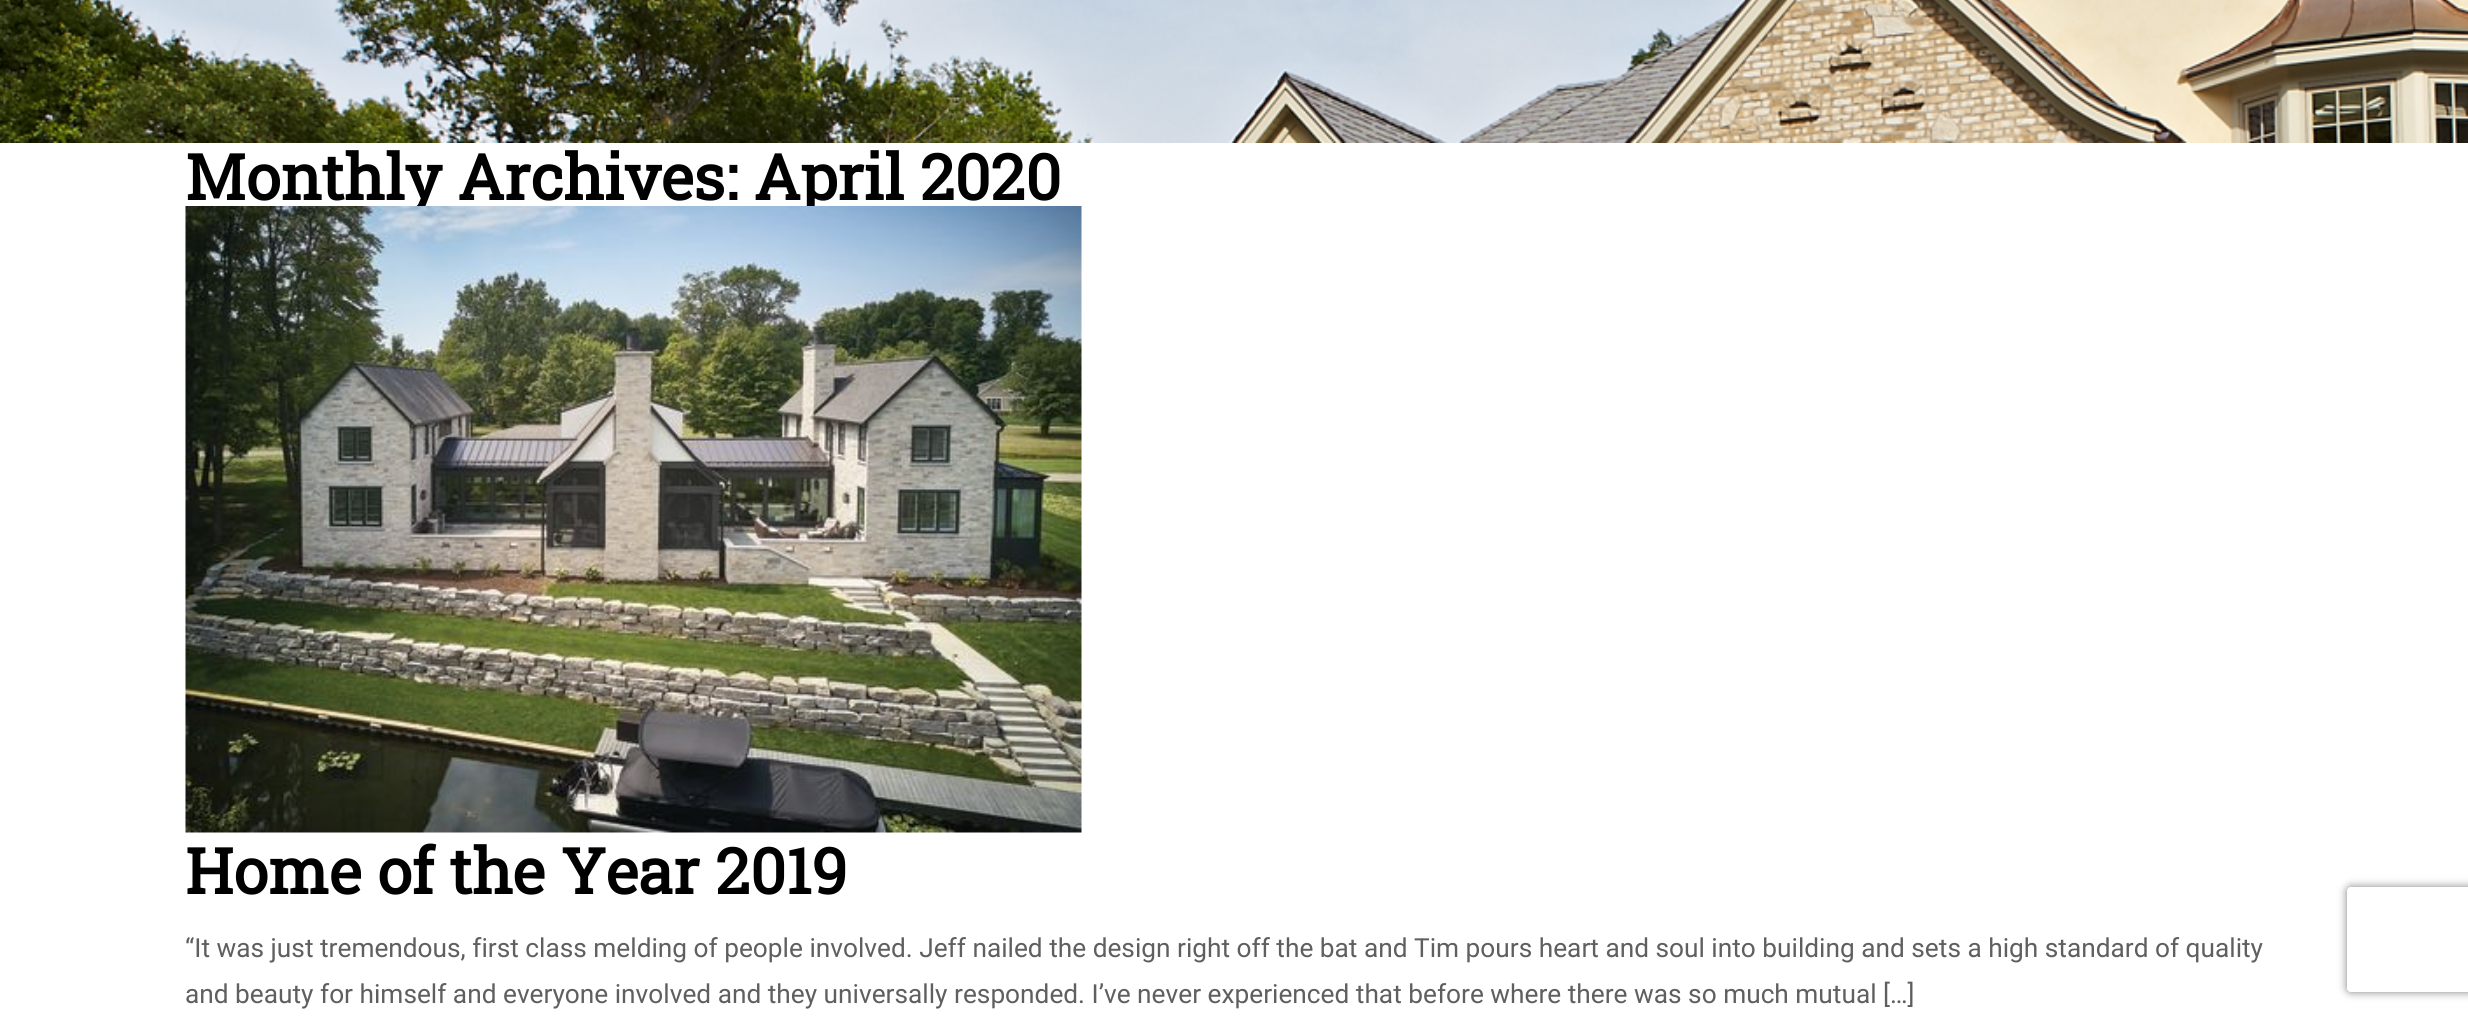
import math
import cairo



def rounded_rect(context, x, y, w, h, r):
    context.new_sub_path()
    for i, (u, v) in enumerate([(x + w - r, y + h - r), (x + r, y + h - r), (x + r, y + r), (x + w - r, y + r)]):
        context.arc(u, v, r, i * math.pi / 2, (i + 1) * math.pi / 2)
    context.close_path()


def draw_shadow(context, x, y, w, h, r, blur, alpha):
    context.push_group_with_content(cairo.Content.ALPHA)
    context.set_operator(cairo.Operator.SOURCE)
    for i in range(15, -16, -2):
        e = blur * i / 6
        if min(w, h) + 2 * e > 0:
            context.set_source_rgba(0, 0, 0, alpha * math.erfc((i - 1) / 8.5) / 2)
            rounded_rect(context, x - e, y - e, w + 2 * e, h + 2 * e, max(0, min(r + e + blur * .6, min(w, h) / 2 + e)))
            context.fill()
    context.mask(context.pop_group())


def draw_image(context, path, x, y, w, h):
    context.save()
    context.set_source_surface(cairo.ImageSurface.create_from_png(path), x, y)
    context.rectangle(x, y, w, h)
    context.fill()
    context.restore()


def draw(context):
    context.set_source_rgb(1, 1, 1)
    context.paint()
    draw_image(context, "images/1.png", 0, 0, 2468, 143)
    context.save()
    context.set_fill_rule(cairo.FillRule.EVEN_ODD)
    context.new_path()
    context.move_to(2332, 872)
    context.line_to(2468, 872)
    context.line_to(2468, 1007)
    context.line_to(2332, 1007)
    context.close_path()
    context.move_to(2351, 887)
    context.line_to(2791, 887)
    context.curve_to(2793, 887, 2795, 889, 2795, 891)
    context.line_to(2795, 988)
    context.curve_to(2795, 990, 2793, 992, 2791, 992)
    context.line_to(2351, 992)
    context.curve_to(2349, 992, 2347, 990, 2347, 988)
    context.line_to(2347, 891)
    context.curve_to(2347, 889, 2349, 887, 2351, 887)
    context.close_path()
    context.clip()
    context.set_source_rgb(128 / 255, 128 / 255, 128 / 255)
    draw_shadow(context, 2347, 887, 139, 105, 4, 4.5, 1)
    context.restore()
    context.select_font_face("Roboto Slab", cairo.FontSlant.NORMAL, cairo.FontWeight.BOLD)
    context.set_font_size(63)
    context.set_source_rgb(0, 0, 0)
    context.move_to(185, 200)
    context.show_text("Monthly Archives: April 2020")
    draw_image(context, "images/2.png", 185, 206, 897, 627)
    context.move_to(185, 894)
    context.show_text("Home of the Year 2019")
    context.select_font_face("Roboto")
    context.set_font_size(26.25)
    context.set_source_rgb(95 / 255, 95 / 255, 95 / 255)
    context.move_to(185, 957)
    context.show_text("“It was just tremendous, first class melding of people involved. Jeff nailed the design right off the bat and Tim pours heart and soul into building and sets a high standard of quality")
    context.move_to(185, 1003)
    context.show_text("and beauty for himself and everyone involved and they universally responded. I’ve never experienced that before where there was so much mutual […]")


surface = cairo.ImageSurface(cairo.Format.RGB24, 2468, 1016)
context = cairo.Context(surface)
options = cairo.FontOptions()
options.set_hint_metrics(cairo.HintMetrics.OFF)
options.set_hint_style(cairo.HintStyle.NONE)
context.set_font_options(options)
context.set_miter_limit(4)
draw(context)
surface.write_to_png("out.png")
